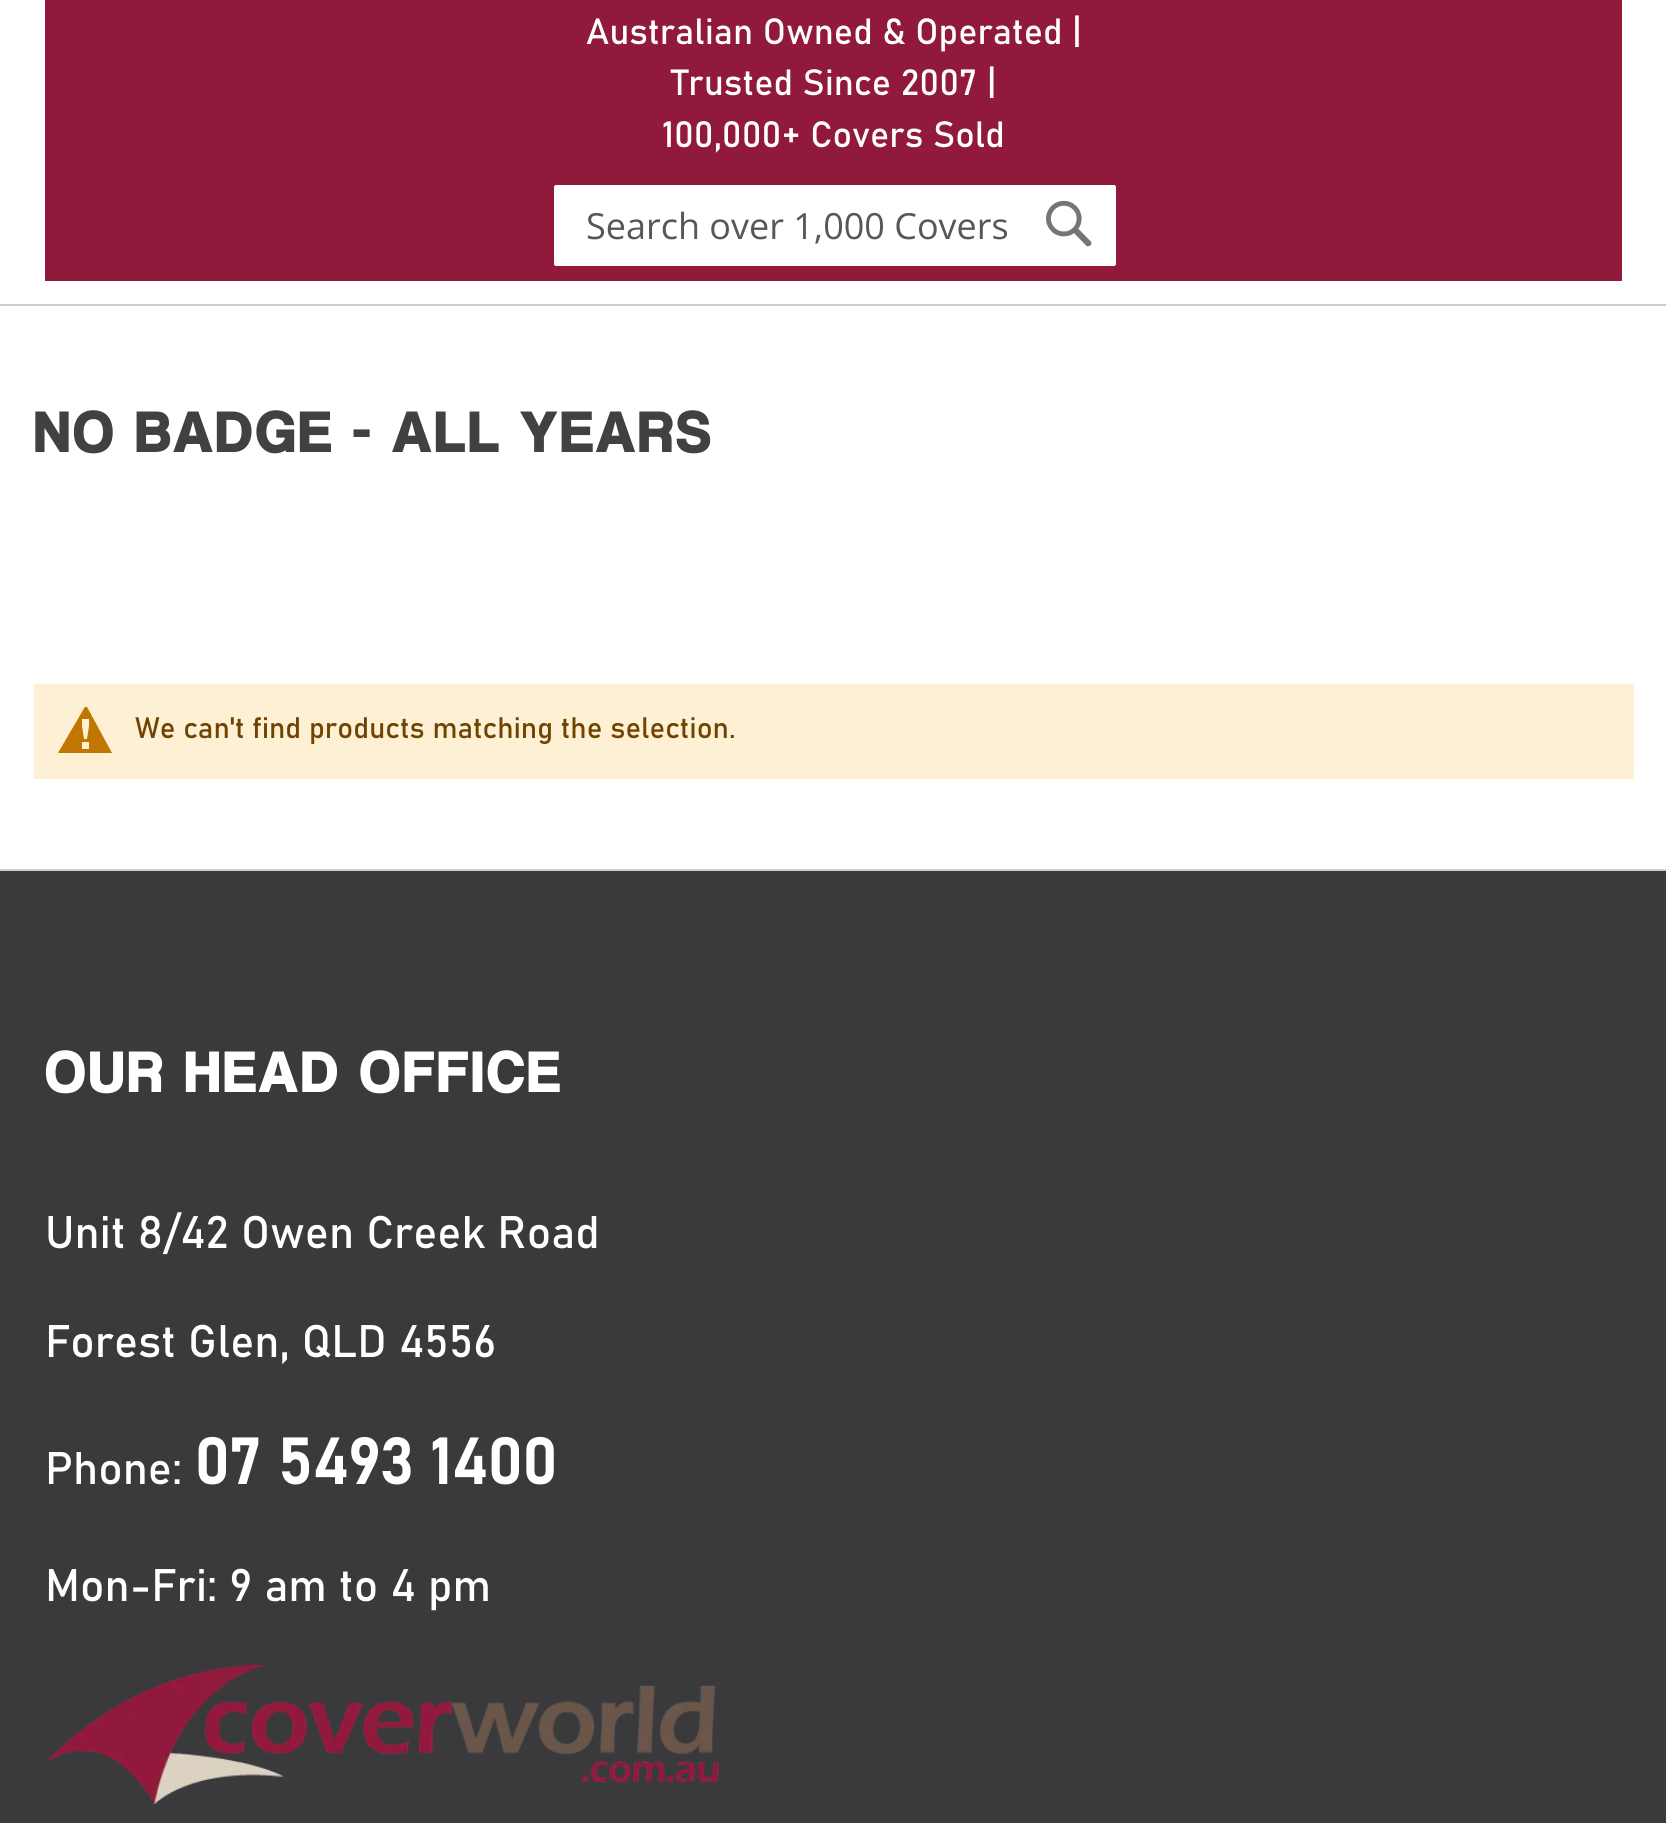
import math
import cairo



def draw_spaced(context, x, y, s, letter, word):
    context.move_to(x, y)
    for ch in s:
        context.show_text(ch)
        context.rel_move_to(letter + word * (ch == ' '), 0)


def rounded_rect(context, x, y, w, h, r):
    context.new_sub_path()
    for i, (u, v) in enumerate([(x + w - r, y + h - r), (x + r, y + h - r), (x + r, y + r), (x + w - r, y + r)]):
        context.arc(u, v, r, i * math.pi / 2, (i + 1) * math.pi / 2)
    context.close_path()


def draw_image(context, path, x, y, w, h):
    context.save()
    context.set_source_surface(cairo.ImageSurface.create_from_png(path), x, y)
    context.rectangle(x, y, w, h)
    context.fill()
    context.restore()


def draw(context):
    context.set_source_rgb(1, 1, 1)
    context.paint()
    context.set_source_rgb(204 / 255, 204 / 255, 204 / 255)
    context.rectangle(0, 304, 1666, 2)
    context.fill()
    context.set_source_rgb(144 / 255, 25 / 255, 60 / 255)
    context.rectangle(45, 0, 1577, 281)
    context.fill()
    context.set_source_rgb(1, 1, 1)
    rounded_rect(context, 554, 185, 562, 81, 2)
    context.fill()
    draw_image(context, "images/1.png", 1046, 200, 46, 47)
    context.set_source_rgb(253 / 255, 240 / 255, 213 / 255)
    context.rectangle(34, 684, 1600, 95)
    context.fill()
    context.save()
    context.rectangle(34, 707, 101, 54)
    context.clip()
    context.set_source_rgb(192 / 255, 118 / 255, 0)
    context.new_path()
    context.move_to(86, 705)
    context.line_to(58, 753)
    context.line_to(112, 753)
    context.close_path()
    context.move_to(89, 719)
    context.line_to(89, 726)
    context.line_to(87, 739)
    context.line_to(84, 739)
    context.line_to(82, 726)
    context.line_to(82, 719)
    context.close_path()
    context.move_to(82, 749)
    context.line_to(82, 742)
    context.line_to(89, 742)
    context.line_to(89, 749)
    context.close_path()
    context.fill()
    context.restore()
    context.set_source_rgb(58 / 255, 58 / 255, 60 / 255)
    context.rectangle(0, 871, 1666, 952)
    context.fill()
    context.set_source_rgb(206 / 255, 206 / 255, 206 / 255)
    context.rectangle(0, 869, 1666, 2)
    context.fill()
    draw_image(context, "images/2.png", 46, 1664, 673, 141)
    context.select_font_face("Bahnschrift")
    context.set_font_size(36)
    context.set_source_rgb(1, 1, 1)
    context.move_to(586, 44)
    context.show_text("Australian Owned & Operated |")
    context.move_to(671, 95)
    context.show_text("Trusted Since 2007 |")
    context.move_to(662, 147)
    context.show_text("100,000+ Covers Sold")
    context.select_font_face("Open Sans")
    context.set_source_rgb(87 / 255, 87 / 255, 87 / 255)
    context.move_to(586, 239)
    context.show_text("Search over 1,000 Covers")
    context.select_font_face("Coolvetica", cairo.FontSlant.NORMAL, cairo.FontWeight.BOLD)
    context.set_font_size(58.5)
    context.set_source_rgb(65 / 255, 64 / 255, 66 / 255)
    draw_spaced(context, 34, 452, "NO BADGE - ALL YEARS", 4.5, 0)
    context.select_font_face("Bahnschrift")
    context.set_font_size(29.25)
    context.set_source_rgb(111 / 255, 68 / 255, 0)
    context.move_to(135, 738)
    context.show_text("We can't find products matching the selection.")
    context.select_font_face("Coolvetica", cairo.FontSlant.NORMAL, cairo.FontWeight.BOLD)
    context.set_font_size(58.5)
    context.set_source_rgb(1, 1, 1)
    draw_spaced(context, 45, 1092, "OUR HEAD OFFICE", 4.5, 0)
    context.select_font_face("Bahnschrift")
    context.set_font_size(45)
    context.move_to(45, 1248)
    context.show_text("Unit 8/42 Owen Creek Road")
    context.move_to(45, 1357)
    context.show_text("Forest Glen, QLD 4556")
    context.move_to(45, 1484)
    context.show_text("Phone:")
    context.select_font_face("Bahnschrift", cairo.FontSlant.NORMAL, cairo.FontWeight.BOLD)
    context.set_font_size(63)
    context.move_to(194, 1484)
    context.show_text("07 5493 1400")
    context.select_font_face("Bahnschrift")
    context.set_font_size(45)
    context.move_to(45, 1601)
    context.show_text("Mon-Fri: 9 am to 4 pm")


surface = cairo.ImageSurface(cairo.Format.RGB24, 1666, 1823)
context = cairo.Context(surface)
options = cairo.FontOptions()
options.set_hint_metrics(cairo.HintMetrics.OFF)
options.set_hint_style(cairo.HintStyle.NONE)
context.set_font_options(options)
context.set_miter_limit(4)
draw(context)
surface.write_to_png("out.png")
